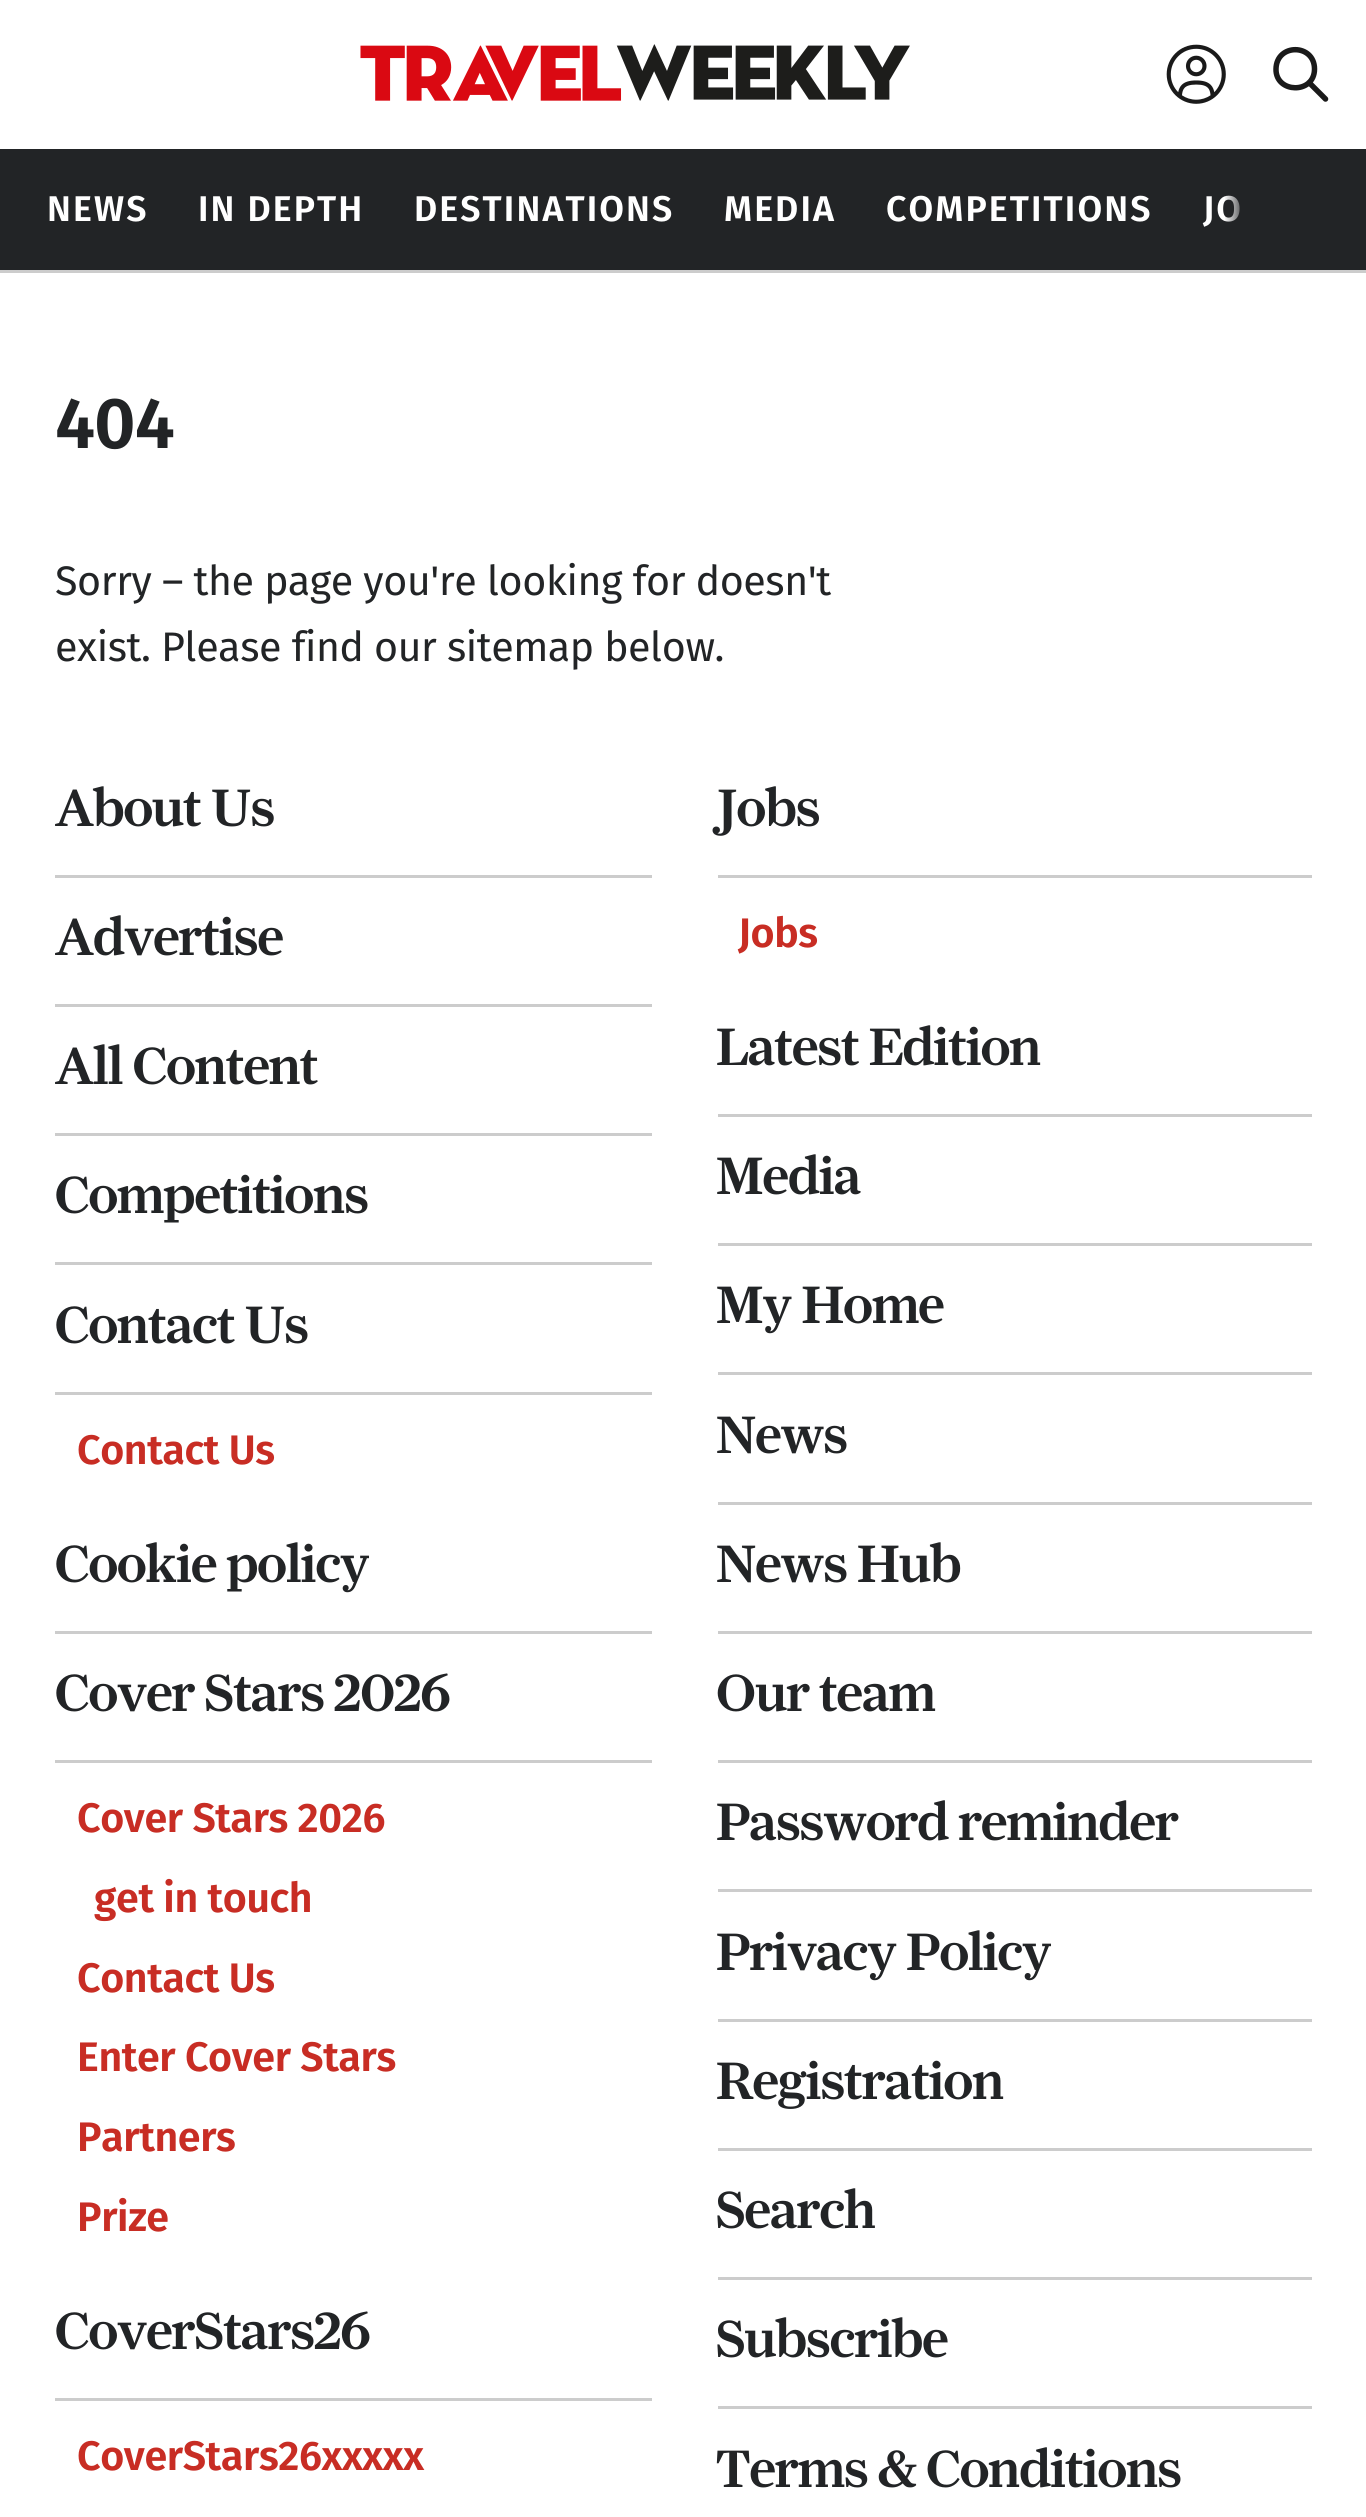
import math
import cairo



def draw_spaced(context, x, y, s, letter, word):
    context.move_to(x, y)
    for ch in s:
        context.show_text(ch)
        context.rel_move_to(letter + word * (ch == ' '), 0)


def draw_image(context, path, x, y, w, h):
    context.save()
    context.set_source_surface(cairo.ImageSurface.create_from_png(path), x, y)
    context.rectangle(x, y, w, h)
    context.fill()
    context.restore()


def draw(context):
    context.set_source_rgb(1, 1, 1)
    context.paint()
    draw_image(context, "images/1.png", 360, 44, 550, 57)
    draw_image(context, "images/2.png", 1166, 44, 60, 60)
    context.new_path()
    context.move_to(1325.5, 99)
    context.line_to(1309, 82.5)
    context.close_path()
    context.move_to(1314.5, 69)
    context.curve_to(1314.5, 94.5, 1275.5, 93.5, 1276, 69)
    context.curve_to(1276.5, 43, 1314.5, 43.5, 1314.5, 69)
    context.close_path()
    context.set_source_rgb(26 / 255, 26 / 255, 26 / 255)
    context.set_line_width(5.5)
    context.set_line_cap(cairo.LineCap.ROUND)
    context.set_line_join(cairo.LineJoin.ROUND)
    context.stroke()
    context.set_source_rgb(34 / 255, 36 / 255, 38 / 255)
    context.rectangle(0, 149, 1366, 121)
    context.fill()
    context.set_source_rgb(204 / 255, 204 / 255, 204 / 255)
    context.rectangle(0, 270, 1366, 3)
    context.fill()
    context.rectangle(55, 875, 597, 3)
    context.fill()
    context.rectangle(55, 1004, 597, 3)
    context.fill()
    context.rectangle(55, 1133, 597, 3)
    context.fill()
    context.rectangle(55, 1262, 597, 3)
    context.fill()
    context.rectangle(55, 1392, 597, 3)
    context.fill()
    context.rectangle(55, 1631, 597, 3)
    context.fill()
    context.rectangle(55, 1760, 597, 3)
    context.fill()
    context.rectangle(55, 2398, 597, 3)
    context.fill()
    context.rectangle(718, 875, 594, 3)
    context.fill()
    context.rectangle(718, 1114, 594, 3)
    context.fill()
    context.rectangle(718, 1243, 594, 3)
    context.fill()
    context.rectangle(718, 1372, 594, 3)
    context.fill()
    context.rectangle(718, 1502, 594, 3)
    context.fill()
    context.rectangle(718, 1631, 594, 3)
    context.fill()
    context.rectangle(718, 1760, 594, 3)
    context.fill()
    context.rectangle(718, 1889, 594, 3)
    context.fill()
    context.rectangle(718, 2019, 594, 3)
    context.fill()
    context.rectangle(718, 2148, 594, 3)
    context.fill()
    context.rectangle(718, 2277, 594, 3)
    context.fill()
    context.rectangle(718, 2406, 594, 3)
    context.fill()
    context.select_font_face("Fira Sans SemiBold")
    context.set_font_size(35.75)
    context.set_source_rgb(1, 1, 1)
    draw_spaced(context, 47, 221, "NEWS", 2.1, 0)
    draw_spaced(context, 198, 221, "IN DEPTH", 2.1, 0)
    draw_spaced(context, 414, 221, "DESTINATIONS", 2.1, 0)
    draw_spaced(context, 724, 221, "MEDIA", 2.1, 0)
    draw_spaced(context, 886, 221, "COMPETITIONS", 2.1, 0)
    draw_spaced(context, 1203, 221, "JO", 2.1, 0)
    gradient = cairo.LinearGradient(1262, 209, 1224, 209)
    gradient.add_color_stop_rgba(0, 34 / 255, 36 / 255, 38 / 255, 1)
    gradient.add_color_stop_rgba(0.5, 34 / 255, 36 / 255, 38 / 255, 0.8)
    gradient.add_color_stop_rgba(1, 34 / 255, 36 / 255, 38 / 255, 0)
    context.set_source(gradient)
    context.rectangle(1225, 195, 15, 27)
    context.fill()
    context.set_font_size(72)
    context.set_source_rgb(34 / 255, 36 / 255, 38 / 255)
    draw_spaced(context, 55, 448, "404", -1, 0)
    context.select_font_face("Fira Sans")
    context.set_font_size(41.25)
    draw_spaced(context, 55, 595, "Sorry – the page you're looking for doesn't", -0.4, 0)
    draw_spaced(context, 55, 661, "exist. Please find our sitemap below.", -0.4, 0)
    context.select_font_face("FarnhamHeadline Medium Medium")
    context.set_font_size(55)
    draw_spaced(context, 55, 826, "About Us", -0.5, 0)
    draw_spaced(context, 55, 955, "Advertise", -0.5, 0)
    draw_spaced(context, 55, 1084, "All Content", -0.5, 0)
    draw_spaced(context, 55, 1213, "Competitions", -0.5, 0)
    draw_spaced(context, 55, 1343, "Contact Us", -0.5, 0)
    context.select_font_face("Fira Sans SemiBold")
    context.set_font_size(41.25)
    context.set_source_rgb(200 / 255, 45 / 255, 36 / 255)
    draw_spaced(context, 77, 1464, "Contact Us", -0.4, 0)
    context.select_font_face("FarnhamHeadline Medium Medium")
    context.set_font_size(55)
    context.set_source_rgb(34 / 255, 36 / 255, 38 / 255)
    draw_spaced(context, 55, 1582, "Cookie policy", -0.5, 0)
    draw_spaced(context, 55, 1711, "Cover Stars 2026", -0.5, 0)
    context.select_font_face("Fira Sans SemiBold")
    context.set_font_size(41.25)
    context.set_source_rgb(200 / 255, 45 / 255, 36 / 255)
    draw_spaced(context, 77, 1832, "Cover Stars 2026", -0.4, 0)
    draw_spaced(context, 94, 1912, "get in touch", -0.4, 0)
    draw_spaced(context, 77, 1992, "Contact Us", -0.4, 0)
    draw_spaced(context, 77, 2071, "Enter Cover Stars", -0.4, 0)
    draw_spaced(context, 77, 2151, "Partners", -0.4, 0)
    draw_spaced(context, 77, 2231, "Prize", -0.4, 0)
    context.select_font_face("FarnhamHeadline Medium Medium")
    context.set_font_size(55)
    context.set_source_rgb(34 / 255, 36 / 255, 38 / 255)
    draw_spaced(context, 55, 2349, "CoverStars26", -0.5, 0)
    context.select_font_face("Fira Sans SemiBold")
    context.set_font_size(41.25)
    context.set_source_rgb(200 / 255, 45 / 255, 36 / 255)
    draw_spaced(context, 77, 2470, "CoverStars26xxxxx", -0.4, 0)
    context.select_font_face("FarnhamHeadline Medium Medium")
    context.set_font_size(55)
    context.set_source_rgb(34 / 255, 36 / 255, 38 / 255)
    draw_spaced(context, 716, 826, "Jobs", -0.5, 0)
    context.select_font_face("Fira Sans SemiBold")
    context.set_font_size(41.25)
    context.set_source_rgb(200 / 255, 45 / 255, 36 / 255)
    draw_spaced(context, 738, 947, "Jobs", -0.4, 0)
    context.select_font_face("FarnhamHeadline Medium Medium")
    context.set_font_size(55)
    context.set_source_rgb(34 / 255, 36 / 255, 38 / 255)
    draw_spaced(context, 716, 1065, "Latest Edition", -0.5, 0)
    draw_spaced(context, 716, 1194, "Media", -0.5, 0)
    draw_spaced(context, 716, 1323, "My Home", -0.5, 0)
    draw_spaced(context, 716, 1453, "News", -0.5, 0)
    draw_spaced(context, 716, 1582, "News Hub", -0.5, 0)
    draw_spaced(context, 716, 1711, "Our team", -0.5, 0)
    draw_spaced(context, 716, 1840, "Password reminder", -0.5, 0)
    draw_spaced(context, 716, 1970, "Privacy Policy", -0.5, 0)
    draw_spaced(context, 716, 2099, "Registration", -0.5, 0)
    draw_spaced(context, 716, 2228, "Search", -0.5, 0)
    draw_spaced(context, 716, 2357, "Subscribe", -0.5, 0)
    draw_spaced(context, 716, 2487, "Terms & Conditions", -0.5, 0)


surface = cairo.ImageSurface(cairo.Format.RGB24, 1366, 2517)
context = cairo.Context(surface)
options = cairo.FontOptions()
options.set_hint_metrics(cairo.HintMetrics.OFF)
options.set_hint_style(cairo.HintStyle.NONE)
context.set_font_options(options)
context.set_miter_limit(4)
draw(context)
surface.write_to_png("out.png")
